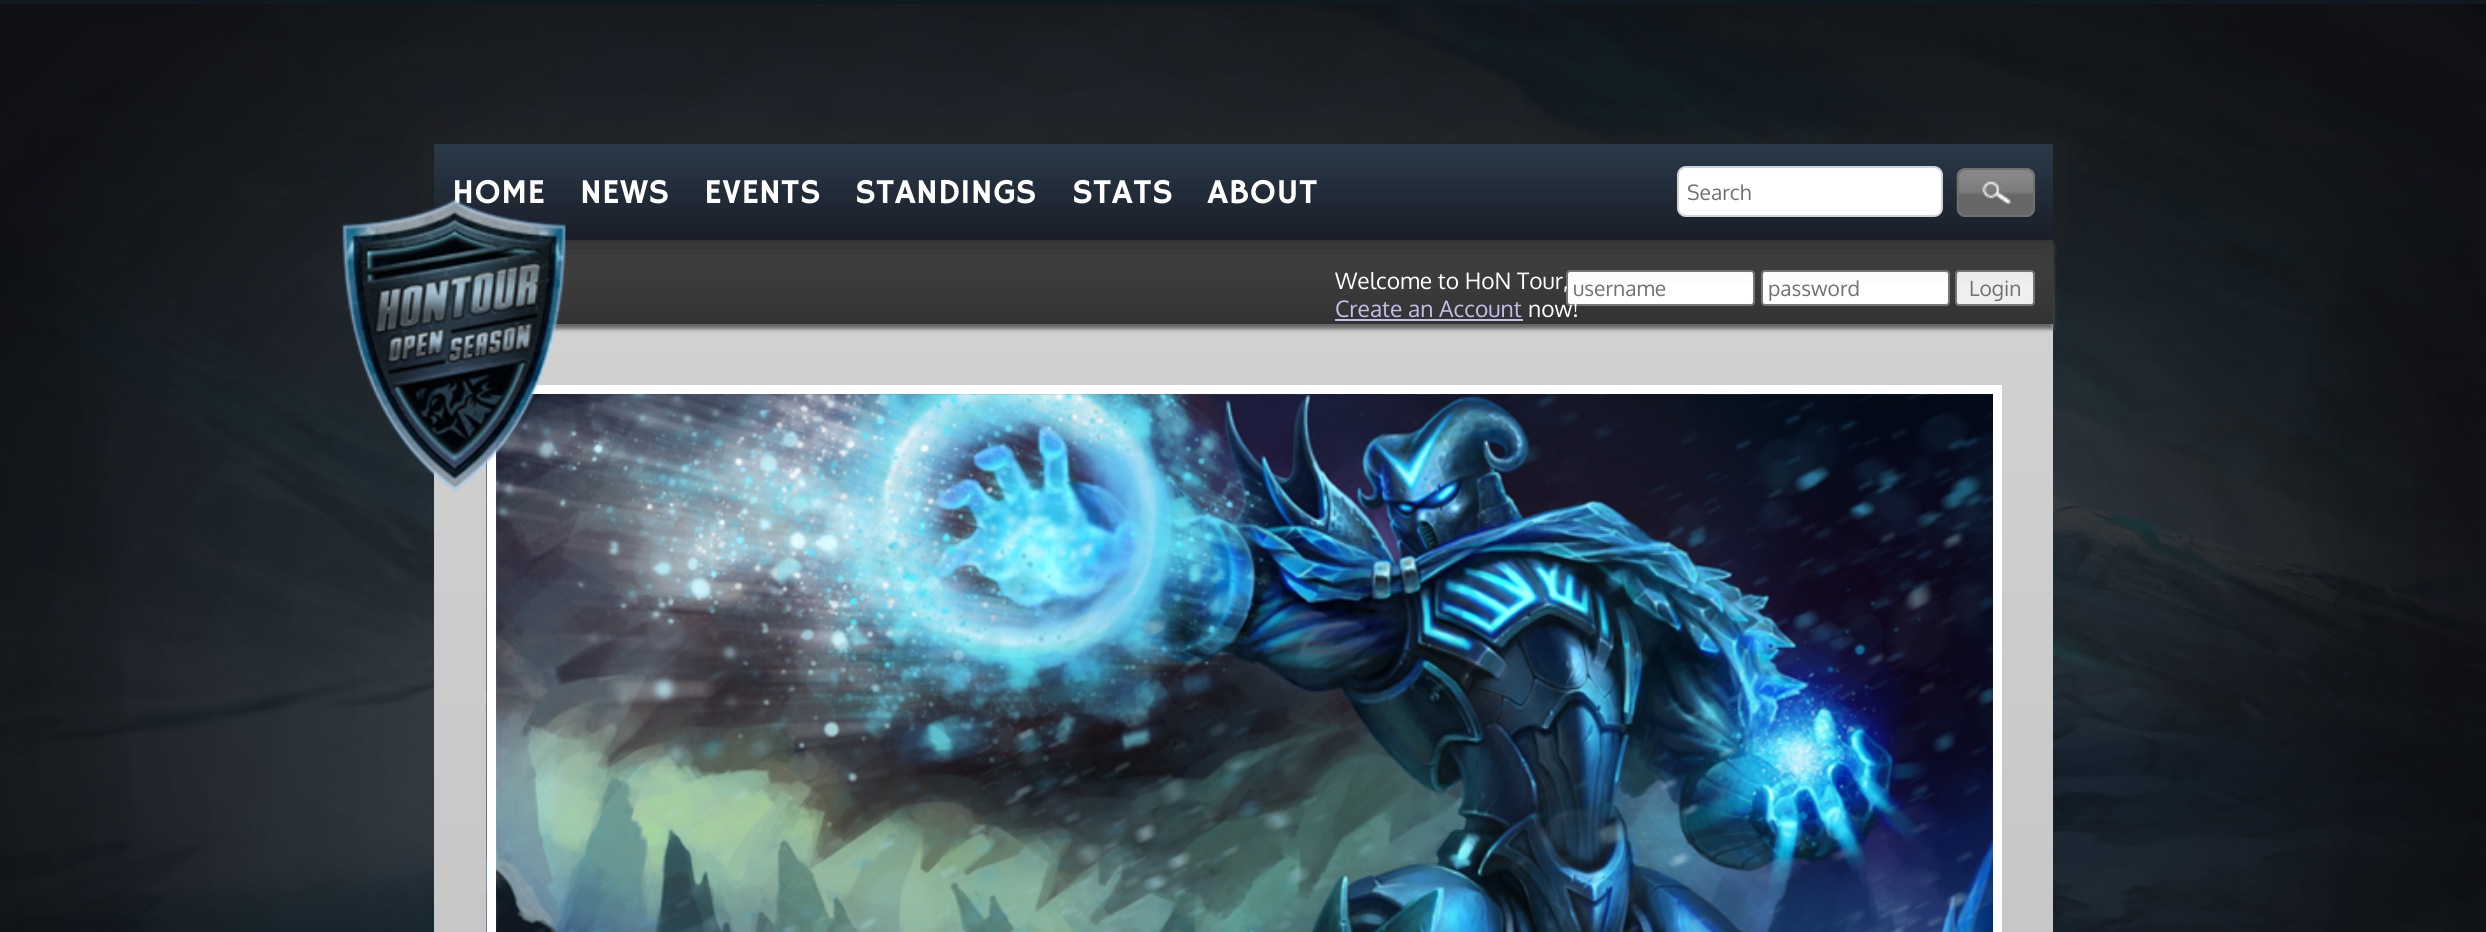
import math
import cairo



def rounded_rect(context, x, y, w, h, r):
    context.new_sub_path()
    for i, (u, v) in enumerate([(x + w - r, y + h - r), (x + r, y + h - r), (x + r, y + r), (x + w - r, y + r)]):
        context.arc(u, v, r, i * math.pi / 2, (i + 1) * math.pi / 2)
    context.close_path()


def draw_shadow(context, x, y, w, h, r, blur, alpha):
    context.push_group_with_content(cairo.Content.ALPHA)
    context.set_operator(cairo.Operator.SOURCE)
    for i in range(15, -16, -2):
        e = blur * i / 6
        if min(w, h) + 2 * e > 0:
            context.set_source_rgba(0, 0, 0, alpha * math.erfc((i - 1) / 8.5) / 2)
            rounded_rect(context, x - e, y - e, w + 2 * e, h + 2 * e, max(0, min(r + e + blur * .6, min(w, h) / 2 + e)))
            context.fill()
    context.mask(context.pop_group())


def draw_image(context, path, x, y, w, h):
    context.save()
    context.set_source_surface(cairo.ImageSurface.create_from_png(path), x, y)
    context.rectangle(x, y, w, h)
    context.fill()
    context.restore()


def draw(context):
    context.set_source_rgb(1, 1, 1)
    context.paint()
    draw_image(context, "images/1.png", 0, 4, 2486, 928)
    context.set_source_rgb(15 / 255, 25 / 255, 34 / 255)
    context.rectangle(0, 0, 2486, 4)
    context.fill()
    gradient = cairo.LinearGradient(1243, 262, 1243, 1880)
    gradient.add_color_stop_rgba(0, 210 / 255, 210 / 255, 210 / 255, 1)
    gradient.add_color_stop_rgba(1, 183 / 255, 183 / 255, 183 / 255, 1)
    context.set_source(gradient)
    context.rectangle(434, 324, 1619, 608)
    context.fill()
    context.set_source_rgb(102 / 255, 102 / 255, 102 / 255)
    draw_shadow(context, 434, 245, 1619, 84, 0, 2, 1)
    gradient = cairo.LinearGradient(1243, 240, 1243, 324)
    gradient.add_color_stop_rgba(0, 67 / 255, 67 / 255, 67 / 255, 1)
    gradient.add_color_stop_rgba(1, 51 / 255, 51 / 255, 51 / 255, 1)
    context.set_source(gradient)
    context.rectangle(552, 240, 1501, 84)
    context.fill()
    context.set_source_rgb(1, 1, 1)
    rounded_rect(context, 1567, 271, 187, 34, 3)
    context.fill_preserve()
    context.set_source_rgb(118 / 255, 118 / 255, 118 / 255)
    context.stroke()
    context.set_source_rgb(1, 1, 1)
    rounded_rect(context, 1762, 271, 187, 34, 3)
    context.fill_preserve()
    context.set_source_rgb(118 / 255, 118 / 255, 118 / 255)
    context.stroke()
    context.set_source_rgb(239 / 255, 239 / 255, 239 / 255)
    rounded_rect(context, 1956, 271, 78, 34, 3)
    context.fill_preserve()
    context.set_source_rgb(118 / 255, 118 / 255, 118 / 255)
    context.stroke()
    context.set_source_rgb(34 / 255, 34 / 255, 34 / 255)
    draw_shadow(context, 434, 144, 1619, 96, 0, 17.5, 1)
    gradient = cairo.LinearGradient(1243, 143, 1243, 240)
    gradient.add_color_stop_rgba(0, 42 / 255, 58 / 255, 73 / 255, 1)
    gradient.add_color_stop_rgba(0.99, 26 / 255, 30 / 255, 41 / 255, 1)
    context.set_source(gradient)
    context.rectangle(434, 144, 1619, 96)
    context.fill()
    context.set_source_rgb(1, 1, 1)
    rounded_rect(context, 1678, 167, 264, 49, 8)
    context.fill_preserve()
    context.set_source_rgb(210 / 255, 210 / 255, 210 / 255)
    context.stroke()
    draw_image(context, "images/2.png", 1956, 168, 80, 49)
    rounded_rect(context, 1958, 169, 76, 47, 8)
    context.set_source_rgb(112 / 255, 112 / 255, 112 / 255)
    context.stroke()
    context.set_source_rgb(200 / 255, 189 / 255, 233 / 255)
    context.rectangle(1335, 319, 188, 2)
    context.fill()
    draw_image(context, "images/4.png", 486, 394, 1507, 538)
    context.rectangle(491.5, 389.5, 1506, 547)
    context.set_source_rgb(1, 1, 1)
    context.set_line_width(9)
    context.stroke()
    context.select_font_face("Hammersmith One")
    context.set_font_size(35)
    context.move_to(452, 203)
    context.show_text("HOME")
    context.move_to(580, 203)
    context.show_text("NEWS")
    context.move_to(704, 203)
    context.show_text("EVENTS")
    context.move_to(855, 203)
    context.show_text("STANDINGS")
    context.move_to(1072, 203)
    context.show_text("STATS")
    context.move_to(1207, 203)
    context.show_text("ABOUT")
    context.select_font_face("Oxygen")
    context.set_font_size(21)
    context.set_source_rgb(114 / 255, 114 / 255, 114 / 255)
    context.move_to(1687, 200)
    context.show_text("Search")
    draw_image(context, "images/3.png", 342, 199, 224, 293)
    context.set_font_size(22.75)
    context.set_source_rgb(1, 1, 1)
    context.move_to(1335, 289)
    context.show_text("Welcome to HoN Tour,")
    context.set_source_rgb(200 / 255, 189 / 255, 233 / 255)
    context.move_to(1335, 317)
    context.show_text("Create an Account")
    context.set_source_rgb(1, 1, 1)
    context.move_to(1528, 317)
    context.show_text("now!")
    context.set_font_size(21)
    context.set_source_rgb(114 / 255, 114 / 255, 114 / 255)
    context.move_to(1573, 296)
    context.show_text("username")
    context.move_to(1768, 296)
    context.show_text("password")
    context.move_to(1969, 296)
    context.show_text("Login")


surface = cairo.ImageSurface(cairo.Format.RGB24, 2486, 932)
context = cairo.Context(surface)
options = cairo.FontOptions()
options.set_hint_metrics(cairo.HintMetrics.OFF)
options.set_hint_style(cairo.HintStyle.NONE)
context.set_font_options(options)
context.set_miter_limit(4)
draw(context)
surface.write_to_png("out.png")
